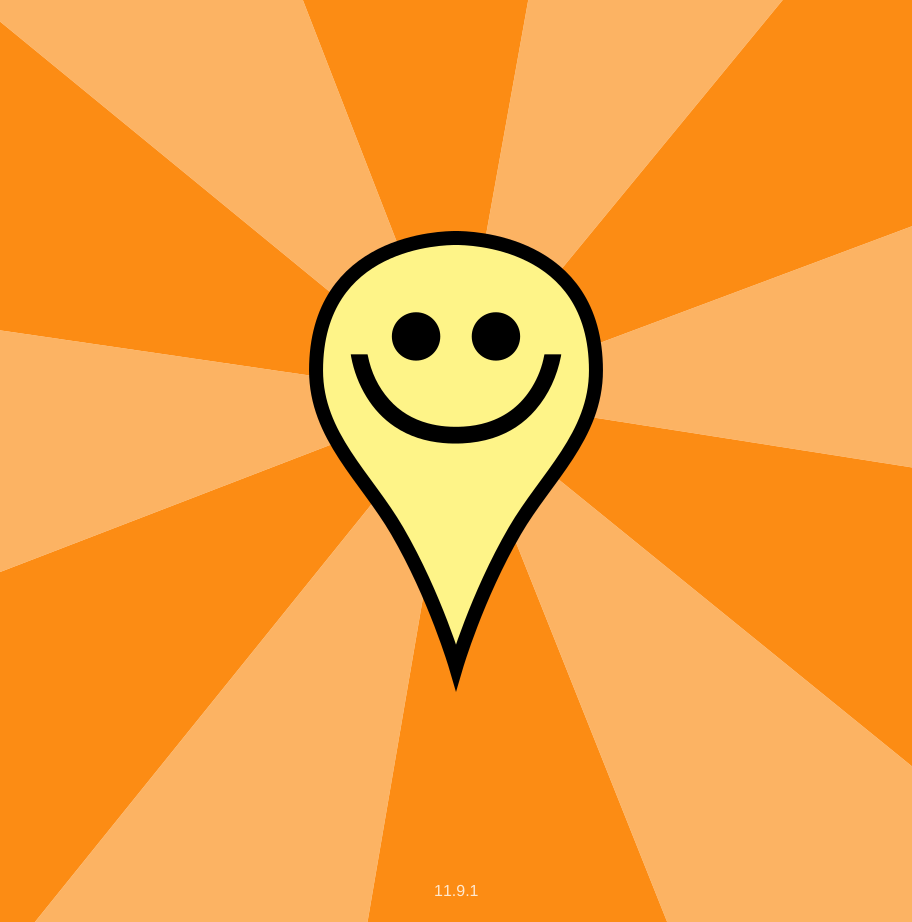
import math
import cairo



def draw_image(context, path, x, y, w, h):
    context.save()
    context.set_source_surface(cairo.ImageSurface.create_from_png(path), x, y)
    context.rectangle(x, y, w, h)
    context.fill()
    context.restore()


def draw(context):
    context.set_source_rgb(1, 1, 1)
    context.paint()
    draw_image(context, "images/1.png", 0, 0, 912, 922)
    draw_image(context, "images/2.png", 309, 231, 294, 461)
    context.select_font_face("Liberation Sans")
    context.set_font_size(16)
    context.set_source_rgb(254 / 255, 232 / 255, 208 / 255)
    context.move_to(434, 896)
    context.show_text("11.9.1")


surface = cairo.ImageSurface(cairo.Format.RGB24, 912, 922)
context = cairo.Context(surface)
options = cairo.FontOptions()
options.set_hint_metrics(cairo.HintMetrics.OFF)
options.set_hint_style(cairo.HintStyle.NONE)
context.set_font_options(options)
context.set_miter_limit(4)
draw(context)
surface.write_to_png("out.png")
